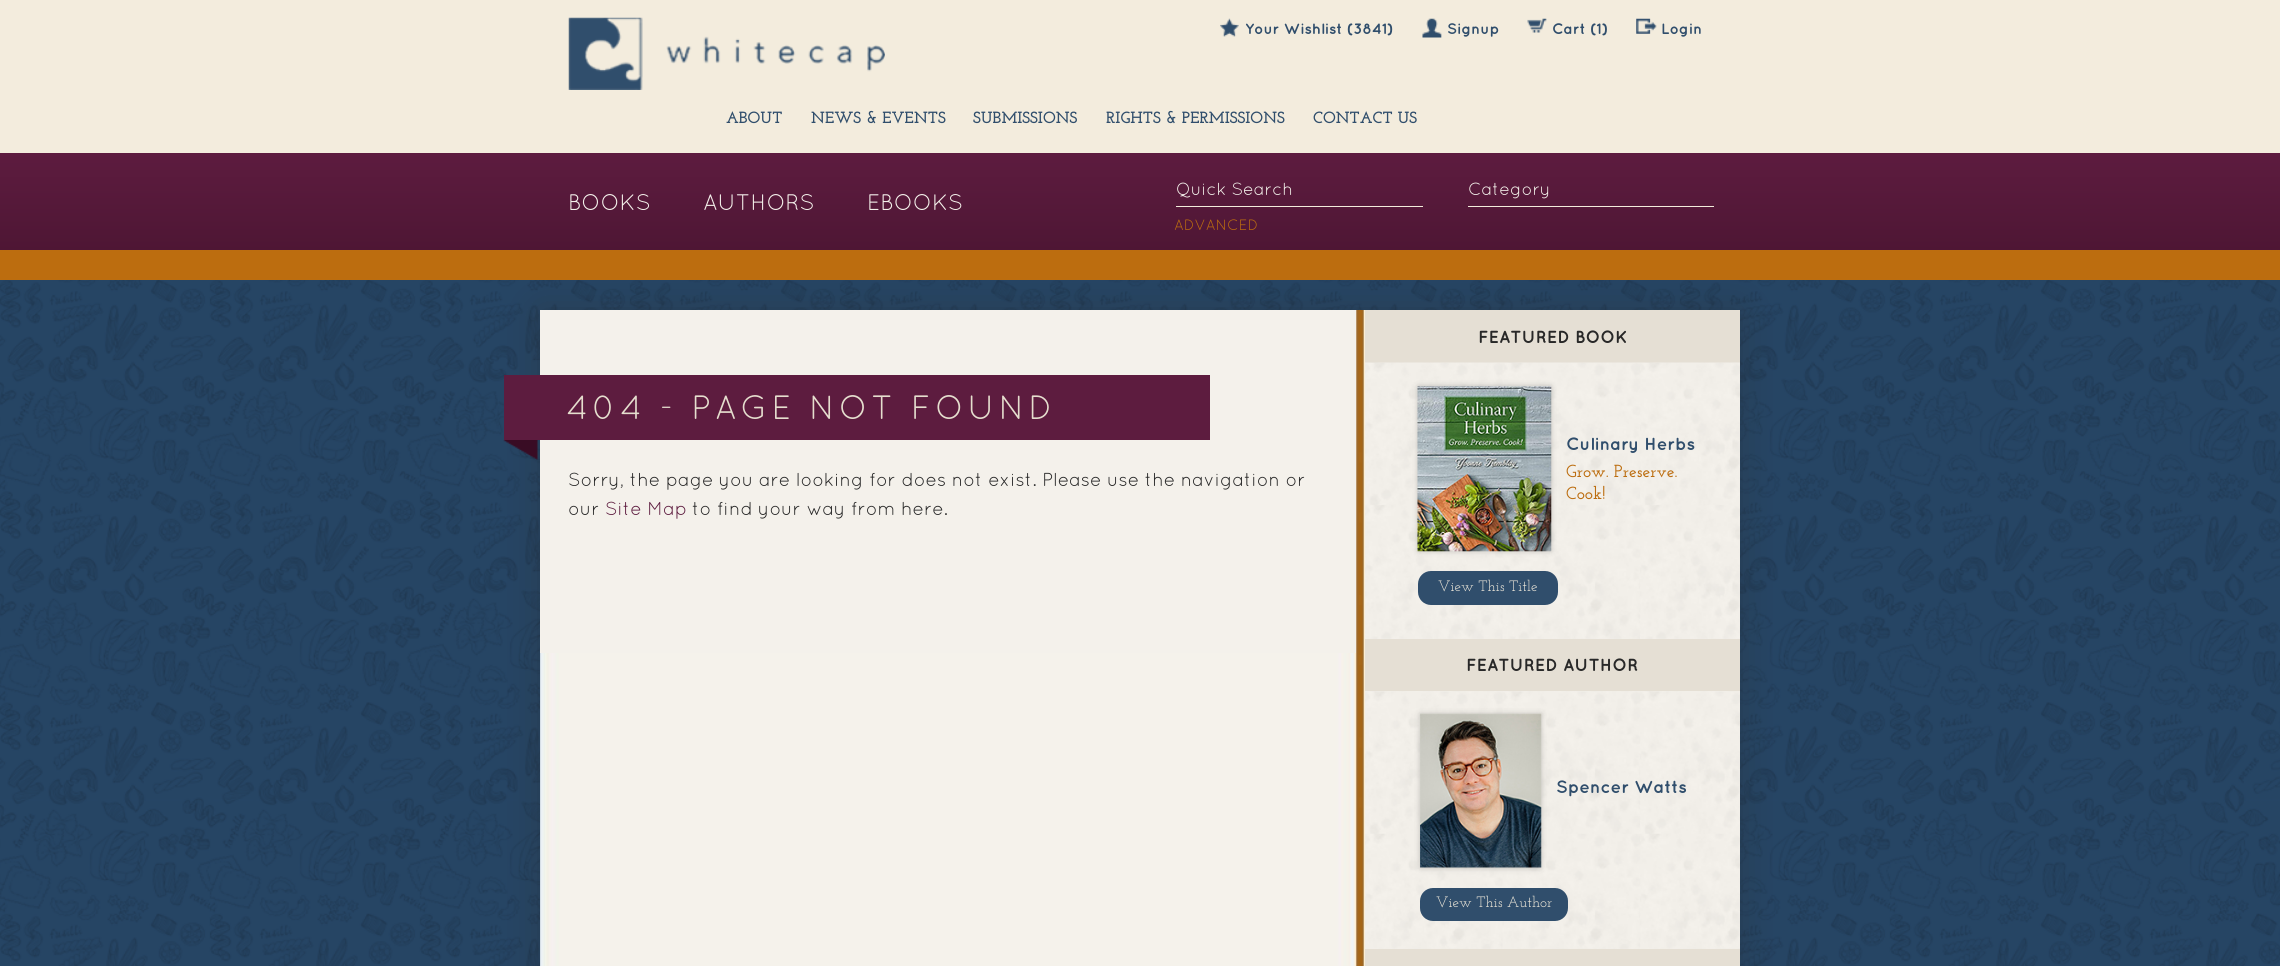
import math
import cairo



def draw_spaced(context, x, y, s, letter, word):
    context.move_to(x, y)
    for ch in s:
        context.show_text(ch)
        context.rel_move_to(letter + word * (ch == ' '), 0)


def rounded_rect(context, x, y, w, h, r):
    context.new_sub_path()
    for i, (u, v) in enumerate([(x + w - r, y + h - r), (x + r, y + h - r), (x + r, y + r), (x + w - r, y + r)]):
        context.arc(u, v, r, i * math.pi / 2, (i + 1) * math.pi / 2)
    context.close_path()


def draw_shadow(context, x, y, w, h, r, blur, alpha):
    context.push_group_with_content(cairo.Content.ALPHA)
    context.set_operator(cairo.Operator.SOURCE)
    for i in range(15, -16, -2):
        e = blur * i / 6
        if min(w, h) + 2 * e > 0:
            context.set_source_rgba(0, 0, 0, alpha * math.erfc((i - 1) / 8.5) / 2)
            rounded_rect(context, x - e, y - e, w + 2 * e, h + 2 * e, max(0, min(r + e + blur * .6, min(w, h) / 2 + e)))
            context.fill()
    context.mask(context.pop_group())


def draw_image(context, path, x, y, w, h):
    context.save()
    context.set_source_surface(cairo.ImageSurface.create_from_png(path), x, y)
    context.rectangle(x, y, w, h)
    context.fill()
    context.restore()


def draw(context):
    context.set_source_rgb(1, 1, 1)
    context.paint()
    context.set_source_rgb(243 / 255, 236 / 255, 221 / 255)
    context.rectangle(0, 0, 2280, 153)
    context.fill()
    draw_image(context, "images/1.png", 568, 17, 317, 73)
    draw_image(context, "images/2.png", 1220, 18, 19, 19)
    draw_image(context, "images/3.png", 1422, 18, 20, 20)
    draw_image(context, "images/4.png", 1527, 18, 20, 15)
    draw_image(context, "images/5.png", 1636, 18, 21, 16)
    gradient = cairo.LinearGradient(1140, 152, 1140, 250)
    gradient.add_color_stop_rgba(0, 93 / 255, 28 / 255, 63 / 255, 1)
    gradient.add_color_stop_rgba(0.5, 86 / 255, 25 / 255, 58 / 255, 1)
    gradient.add_color_stop_rgba(1, 78 / 255, 22 / 255, 52 / 255, 1)
    context.set_source(gradient)
    context.rectangle(0, 153, 2280, 97)
    context.fill()
    context.set_source_rgb(243 / 255, 236 / 255, 220 / 255)
    context.rectangle(1176, 206, 247, 1)
    context.fill()
    context.rectangle(1468, 206, 246, 1)
    context.fill()
    draw_image(context, "images/6.png", 0, 280, 2280, 686)
    context.set_source_rgb(40 / 255, 40 / 255, 40 / 255)
    draw_shadow(context, 540, 310, 1200, 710, 0, 18, 0.32)
    context.set_source_rgb(188 / 255, 109 / 255, 15 / 255)
    context.rectangle(0, 250, 2280, 30)
    context.fill()
    draw_image(context, "images/7.png", 540, 310, 1200, 656)
    context.set_source_rgb(244 / 255, 241 / 255, 235 / 255)
    context.rectangle(540, 310, 816, 343)
    context.fill()
    context.set_source_rgb(93 / 255, 28 / 255, 63 / 255)
    context.rectangle(504, 375, 706, 65)
    context.fill()
    draw_image(context, "images/8.png", 503, 440, 35, 20)
    context.set_source_rgb(229 / 255, 223 / 255, 212 / 255)
    context.rectangle(1365, 310, 375, 53)
    context.fill()
    draw_image(context, "images/9.png", 1365, 362, 375, 277)
    context.set_source_rgb(40 / 255, 40 / 255, 40 / 255)
    draw_shadow(context, 1418, 386, 133, 165, 0, 3, 0.25)
    draw_image(context, "images/10.png", 1417, 386, 135, 166)
    context.set_source_rgb(48 / 255, 78 / 255, 108 / 255)
    rounded_rect(context, 1418, 571, 140, 34, 13)
    context.fill()
    context.set_source_rgb(229 / 255, 223 / 255, 212 / 255)
    context.rectangle(1365, 639, 375, 52)
    context.fill()
    draw_image(context, "images/11.png", 1365, 691, 375, 258)
    context.set_source_rgb(40 / 255, 40 / 255, 40 / 255)
    draw_shadow(context, 1420, 714, 121, 154, 0, 3, 0.25)
    draw_image(context, "images/12.png", 1420, 713, 122, 155)
    context.set_source_rgb(48 / 255, 78 / 255, 108 / 255)
    rounded_rect(context, 1420, 888, 148, 33, 13)
    context.fill()
    context.set_source_rgb(229 / 255, 223 / 255, 212 / 255)
    context.rectangle(1365, 949, 375, 17)
    context.fill()
    context.select_font_face("Quicksand", cairo.FontSlant.NORMAL, cairo.FontWeight.BOLD)
    context.set_font_size(15)
    context.set_source_rgb(48 / 255, 78 / 255, 108 / 255)
    context.move_to(1245, 34)
    context.show_text("Your Wishlist (3841)")
    context.move_to(1447, 34)
    context.show_text("Signup")
    context.move_to(1552, 34)
    context.show_text("Cart (1)")
    context.move_to(1661, 34)
    context.show_text("Login")
    context.select_font_face("Josefin Slab", cairo.FontSlant.NORMAL, cairo.FontWeight.BOLD)
    context.set_font_size(16.25)
    context.move_to(726, 123)
    context.show_text("ABOUT")
    context.move_to(811, 123)
    context.show_text("NEWS & EVENTS")
    context.move_to(973, 123)
    context.show_text("SUBMISSIONS")
    context.move_to(1106, 123)
    context.show_text("RIGHTS & PERMISSIONS")
    context.move_to(1313, 123)
    context.show_text("CONTACT US")
    context.select_font_face("Quicksand")
    context.set_font_size(22.5)
    context.set_source_rgb(244 / 255, 241 / 255, 235 / 255)
    context.move_to(568, 210)
    context.show_text("BOOKS")
    context.move_to(703, 210)
    context.show_text("AUTHORS")
    context.move_to(867, 210)
    context.show_text("EBOOKS")
    context.set_font_size(17.5)
    context.move_to(1176, 195)
    context.show_text("Quick Search")
    context.set_font_size(15)
    context.set_source_rgb(188 / 255, 109 / 255, 15 / 255)
    context.move_to(1174, 230)
    context.show_text("ADVANCED")
    context.set_font_size(17.5)
    context.set_source_rgb(244 / 255, 241 / 255, 235 / 255)
    context.move_to(1468, 195)
    context.show_text("Category")
    context.set_font_size(33.75)
    context.set_source_rgb(229 / 255, 222 / 255, 206 / 255)
    draw_spaced(context, 566, 419, "404 - PAGE NOT FOUND", 3.75, 0)
    context.set_font_size(18.75)
    context.set_source_rgb(40 / 255, 40 / 255, 40 / 255)
    context.move_to(568, 486)
    context.show_text("Sorry, the page you are looking for does not exist. Please use the navigation or")
    context.move_to(568, 515)
    context.show_text("our")
    context.set_source_rgb(93 / 255, 28 / 255, 63 / 255)
    context.move_to(605, 515)
    context.show_text("Site Map")
    context.set_source_rgb(40 / 255, 40 / 255, 40 / 255)
    context.move_to(692, 515)
    context.show_text("to find your way from here.")
    context.select_font_face("Quicksand", cairo.FontSlant.NORMAL, cairo.FontWeight.BOLD)
    context.set_font_size(17.5)
    context.move_to(1478, 343)
    context.show_text("FEATURED BOOK")
    context.set_source_rgb(48 / 255, 78 / 255, 108 / 255)
    context.move_to(1566, 450)
    context.show_text("Culinary Herbs")
    context.select_font_face("Josefin Slab SemiBold")
    context.set_source_rgb(188 / 255, 109 / 255, 15 / 255)
    context.move_to(1566, 477)
    context.show_text("Grow. Preserve.")
    context.move_to(1566, 499)
    context.show_text("Cook!")
    context.select_font_face("Josefin Slab")
    context.set_font_size(15)
    context.set_source_rgb(243 / 255, 236 / 255, 221 / 255)
    context.move_to(1438, 591)
    context.show_text("View This Title")
    context.select_font_face("Quicksand", cairo.FontSlant.NORMAL, cairo.FontWeight.BOLD)
    context.set_font_size(17.5)
    context.set_source_rgb(40 / 255, 40 / 255, 40 / 255)
    context.move_to(1466, 671)
    context.show_text("FEATURED AUTHOR")
    context.set_source_rgb(48 / 255, 78 / 255, 108 / 255)
    context.move_to(1556, 793)
    context.show_text("Spencer Watts")
    context.select_font_face("Josefin Slab")
    context.set_font_size(15)
    context.set_source_rgb(243 / 255, 236 / 255, 221 / 255)
    context.move_to(1436, 907)
    context.show_text("View This Author")


surface = cairo.ImageSurface(cairo.Format.RGB24, 2280, 966)
context = cairo.Context(surface)
options = cairo.FontOptions()
options.set_hint_metrics(cairo.HintMetrics.OFF)
options.set_hint_style(cairo.HintStyle.NONE)
context.set_font_options(options)
context.set_miter_limit(4)
draw(context)
surface.write_to_png("out.png")
